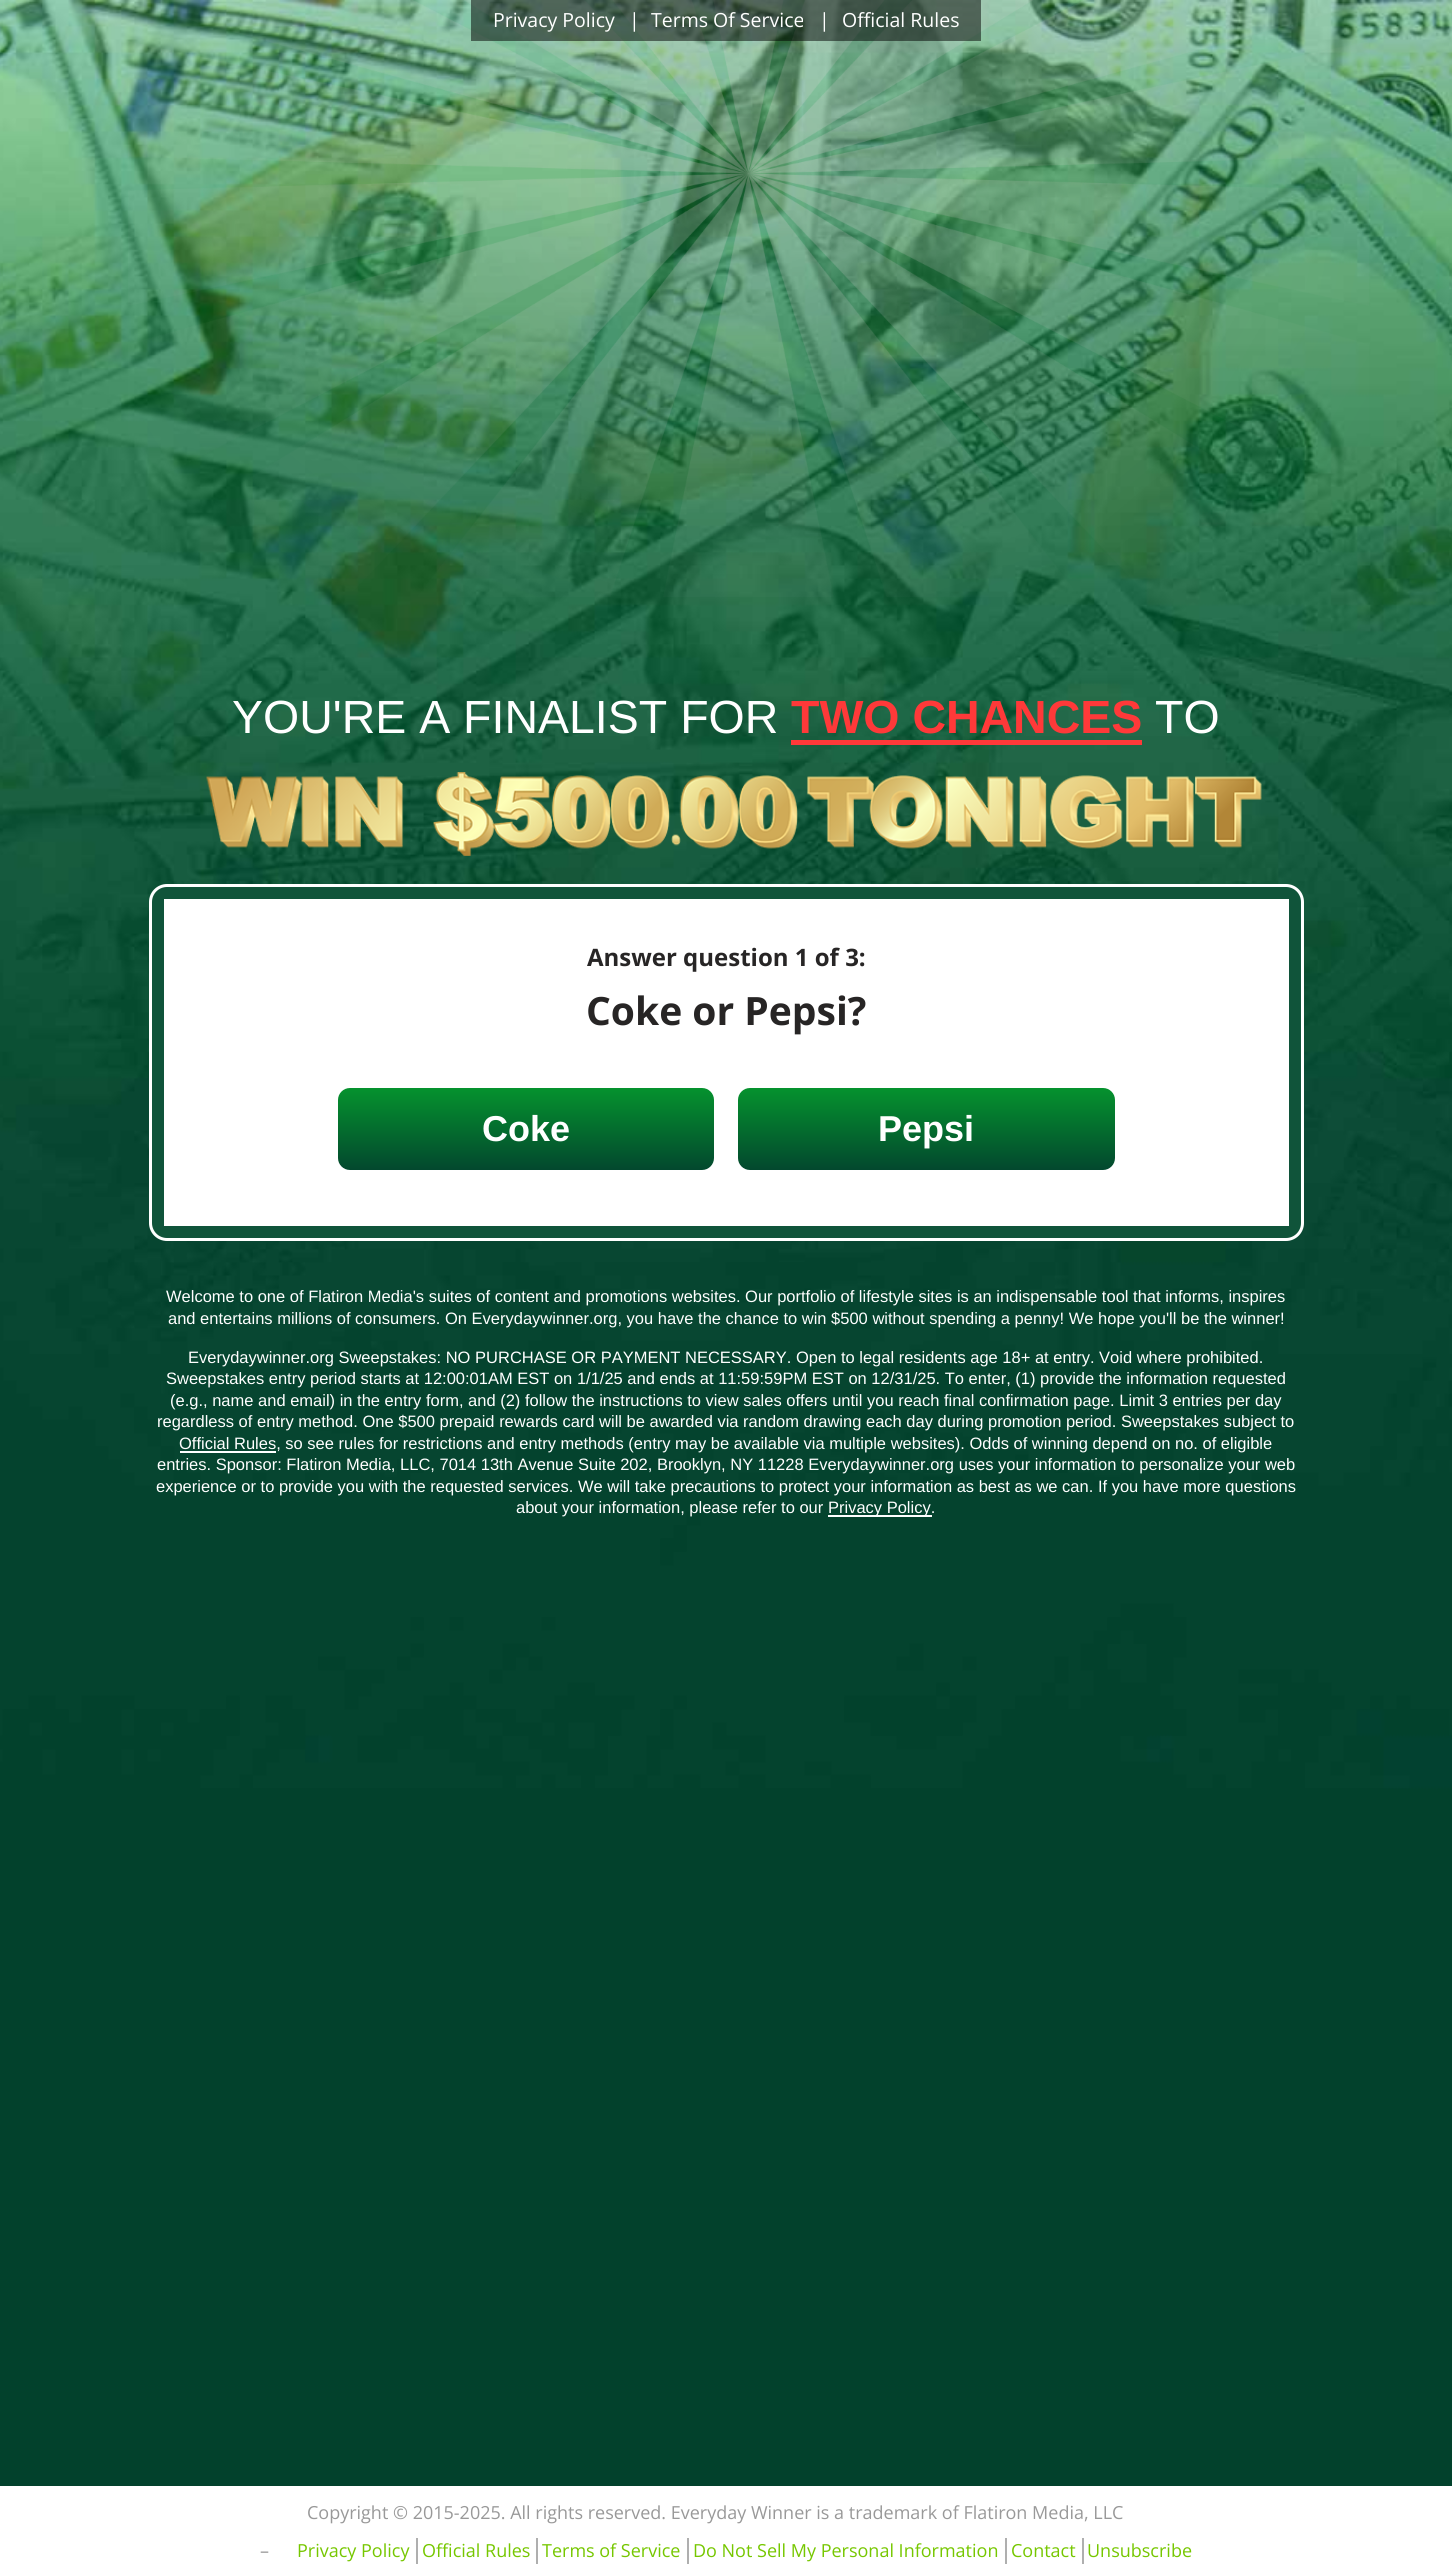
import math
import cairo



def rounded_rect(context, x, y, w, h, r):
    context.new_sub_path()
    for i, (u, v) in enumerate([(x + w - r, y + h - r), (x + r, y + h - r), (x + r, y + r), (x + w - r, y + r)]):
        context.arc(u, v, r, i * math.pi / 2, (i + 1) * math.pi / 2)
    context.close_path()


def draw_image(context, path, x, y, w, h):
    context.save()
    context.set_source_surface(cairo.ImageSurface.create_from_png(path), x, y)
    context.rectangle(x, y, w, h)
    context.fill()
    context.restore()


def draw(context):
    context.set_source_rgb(1, 1, 1)
    context.paint()
    draw_image(context, "images/1.png", 0, 0, 1452, 2486)
    draw_image(context, "images/2.png", 128, 0, 1241, 597)
    context.set_source_rgba(0, 0, 0, 0.5)
    context.rectangle(471, 0, 510, 41)
    context.fill()
    context.set_source_rgb(1, 57 / 255, 57 / 255)
    context.rectangle(791, 740, 351, 5)
    context.fill()
    draw_image(context, "images/3.png", 206, 772, 1056, 84)
    context.set_source_rgb(16 / 255, 84 / 255, 58 / 255)
    rounded_rect(context, 150.5, 885.5, 1152, 354, 16.5)
    context.fill_preserve()
    context.set_source_rgb(1, 1, 1)
    context.set_line_width(3)
    context.stroke()
    context.rectangle(164, 899, 1125, 327)
    context.fill()
    gradient = cairo.LinearGradient(526, 1170, 526, 1088)
    gradient.add_color_stop_rgba(0, 3 / 255, 72 / 255, 46 / 255, 1)
    gradient.add_color_stop_rgba(1, 5 / 255, 146 / 255, 46 / 255, 1)
    context.set_source(gradient)
    rounded_rect(context, 338, 1088, 376, 82, 12)
    context.fill()
    gradient = cairo.LinearGradient(926, 1170, 926, 1088)
    gradient.add_color_stop_rgba(0, 3 / 255, 72 / 255, 46 / 255, 1)
    gradient.add_color_stop_rgba(1, 5 / 255, 146 / 255, 46 / 255, 1)
    context.set_source(gradient)
    rounded_rect(context, 738, 1088, 377, 82, 12)
    context.fill()
    context.set_source_rgb(1, 1, 1)
    context.rectangle(180, 1451, 96, 2)
    context.fill()
    context.rectangle(828, 1515, 104, 2)
    context.fill()
    context.set_source_rgb(175 / 255, 175 / 255, 175 / 255)
    context.rectangle(416, 2538, 2, 26)
    context.fill()
    context.rectangle(536, 2538, 2, 26)
    context.fill()
    context.rectangle(687, 2538, 2, 26)
    context.fill()
    context.rectangle(1005, 2538, 2, 26)
    context.fill()
    context.rectangle(1082, 2538, 2, 26)
    context.fill()
    context.select_font_face("Open Sans")
    context.set_font_size(19.5)
    context.set_source_rgb(1, 1, 1)
    context.move_to(493, 27)
    context.show_text("Privacy Policy")
    context.move_to(629, 27)
    context.show_text("|")
    context.move_to(651, 27)
    context.show_text("Terms Of Service")
    context.move_to(819, 27)
    context.show_text("|")
    context.move_to(842, 27)
    context.show_text("Official Rules")
    context.select_font_face("Liberation Sans")
    context.set_font_size(46.5)
    context.move_to(232, 733)
    context.show_text("YOU'RE A FINALIST FOR")
    context.select_font_face("Liberation Sans", cairo.FontSlant.NORMAL, cairo.FontWeight.BOLD)
    context.set_source_rgb(1, 57 / 255, 57 / 255)
    context.move_to(791, 733)
    context.show_text("TWO CHANCES")
    context.select_font_face("Liberation Sans")
    context.set_source_rgb(1, 1, 1)
    context.move_to(1155, 733)
    context.show_text("TO")
    context.select_font_face("Open Sans", cairo.FontSlant.NORMAL, cairo.FontWeight.BOLD)
    context.set_font_size(24)
    context.set_source_rgb(39 / 255, 37 / 255, 37 / 255)
    context.move_to(587, 966)
    context.show_text("Answer question 1 of 3:")
    context.set_font_size(39)
    context.move_to(586, 1025)
    context.show_text("Coke or Pepsi?")
    context.select_font_face("Liberation Sans", cairo.FontSlant.NORMAL, cairo.FontWeight.BOLD)
    context.set_font_size(36)
    context.set_source_rgb(1, 1, 1)
    context.move_to(482, 1141)
    context.show_text("Coke")
    context.move_to(878, 1141)
    context.show_text("Pepsi")
    context.select_font_face("Liberation Sans")
    context.set_font_size(16.5)
    context.move_to(166, 1302)
    context.show_text("Welcome to one of Flatiron Media's suites of content and promotions websites. Our portfolio of lifestyle sites is an indispensable tool that informs, inspires")
    context.move_to(168, 1324)
    context.show_text("and entertains millions of consumers. On Everydaywinner.org, you have the chance to win $500 without spending a penny! We hope you'll be the winner!")
    context.move_to(188, 1363)
    context.show_text("Everydaywinner.org Sweepstakes: NO PURCHASE OR PAYMENT NECESSARY. Open to legal residents age 18+ at entry. Void where prohibited.")
    context.move_to(166, 1384)
    context.show_text("Sweepstakes entry period starts at 12:00:01AM EST on 1/1/25 and ends at 11:59:59PM EST on 12/31/25. To enter, (1) provide the information requested")
    context.move_to(170, 1406)
    context.show_text("(e.g., name and email) in the entry form, and (2) follow the instructions to view sales offers until you reach final confirmation page. Limit 3 entries per day")
    context.move_to(157, 1427)
    context.show_text("regardless of entry method. One $500 prepaid rewards card will be awarded via random drawing each day during promotion period. Sweepstakes subject to")
    context.move_to(179, 1449)
    context.show_text("Official Rules, so see rules for restrictions and entry methods (entry may be available via multiple websites). Odds of winning depend on no. of eligible")
    context.move_to(157, 1470)
    context.show_text("entries. Sponsor: Flatiron Media, LLC, 7014 13th Avenue Suite 202, Brooklyn, NY 11228 Everydaywinner.org uses your information to personalize your web")
    context.move_to(156, 1492)
    context.show_text("experience or to provide you with the requested services. We will take precautions to protect your information as best as we can. If you have more questions")
    context.move_to(516, 1513)
    context.show_text("about your information, please refer to our")
    context.move_to(828, 1513)
    context.show_text("Privacy Policy.")
    context.select_font_face("Open Sans")
    context.set_font_size(18)
    context.set_source_rgb(153 / 255, 153 / 255, 153 / 255)
    context.move_to(307, 2519)
    context.show_text("Copyright © 2015-2025. All rights reserved. Everyday Winner is a trademark of Flatiron Media, LLC")
    context.move_to(260, 2557)
    context.show_text("–")
    context.set_source_rgb(118 / 255, 199 / 255, 0)
    context.move_to(297, 2557)
    context.show_text("Privacy Policy")
    context.move_to(422, 2557)
    context.show_text("Official Rules")
    context.move_to(542, 2557)
    context.show_text("Terms of Service")
    context.move_to(693, 2557)
    context.show_text("Do Not Sell My Personal Information")
    context.move_to(1011, 2557)
    context.show_text("Contact")
    context.move_to(1087, 2557)
    context.show_text("Unsubscribe")


surface = cairo.ImageSurface(cairo.Format.RGB24, 1452, 2575)
context = cairo.Context(surface)
options = cairo.FontOptions()
options.set_hint_metrics(cairo.HintMetrics.OFF)
options.set_hint_style(cairo.HintStyle.NONE)
context.set_font_options(options)
context.set_miter_limit(4)
draw(context)
surface.write_to_png("out.png")
